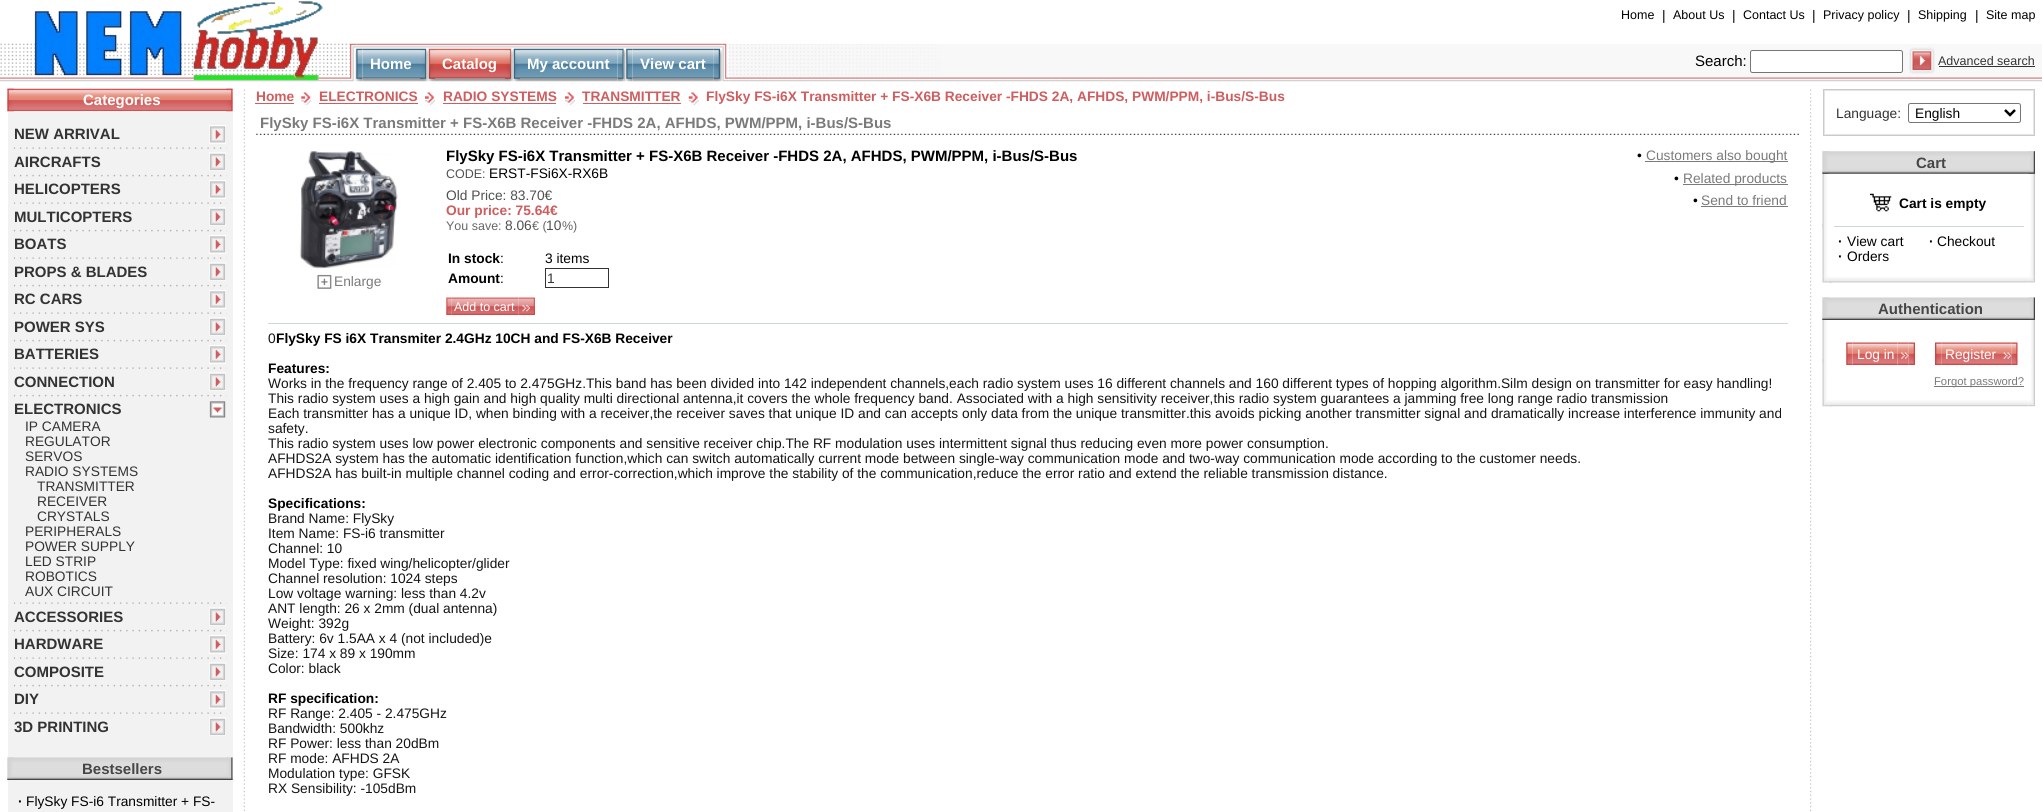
import math
import cairo



def rounded_rect(context, x, y, w, h, r):
    context.new_sub_path()
    for i, (u, v) in enumerate([(x + w - r, y + h - r), (x + r, y + h - r), (x + r, y + r), (x + w - r, y + r)]):
        context.arc(u, v, r, i * math.pi / 2, (i + 1) * math.pi / 2)
    context.close_path()


def draw_image(context, path, x, y, w, h):
    context.save()
    context.set_source_surface(cairo.ImageSurface.create_from_png(path), x, y)
    context.rectangle(x, y, w, h)
    context.fill()
    context.restore()


def draw(context):
    context.set_source_rgb(1, 1, 1)
    context.paint()
    draw_image(context, "images/1.png", 0, 43, 350, 39)
    draw_image(context, "images/2.png", 34, 1, 289, 80)
    draw_image(context, "images/4.png", 356, 43, 367, 5)
    draw_image(context, "images/3.png", 350, 43, 7, 39)
    draw_image(context, "images/6.png", 362, 48, 58, 31)
    draw_image(context, "images/7.png", 362, 78, 58, 4)
    draw_image(context, "images/5.png", 356, 48, 7, 34)
    draw_image(context, "images/8.png", 420, 48, 7, 34)
    draw_image(context, "images/9.png", 426, 49, 3, 33)
    draw_image(context, "images/10.png", 428, 48, 7, 34)
    draw_image(context, "images/11.png", 435, 48, 70, 31)
    draw_image(context, "images/12.png", 435, 78, 70, 4)
    draw_image(context, "images/13.png", 505, 48, 7, 34)
    draw_image(context, "images/14.png", 511, 49, 3, 33)
    draw_image(context, "images/15.png", 513, 48, 7, 34)
    draw_image(context, "images/16.png", 520, 48, 98, 31)
    draw_image(context, "images/17.png", 520, 78, 98, 4)
    draw_image(context, "images/18.png", 617, 48, 7, 34)
    draw_image(context, "images/19.png", 623, 49, 4, 33)
    draw_image(context, "images/21.png", 632, 48, 82, 31)
    draw_image(context, "images/22.png", 632, 78, 82, 4)
    draw_image(context, "images/20.png", 626, 48, 7, 34)
    draw_image(context, "images/23.png", 713, 48, 7, 34)
    draw_image(context, "images/24.png", 720, 49, 3, 33)
    context.set_source_rgb(248 / 255, 248 / 255, 248 / 255)
    context.rectangle(729, 44, 1313, 34)
    context.fill()
    draw_image(context, "images/26.png", 728, 44, 212, 34)
    draw_image(context, "images/28.png", 728, 77, 1314, 5)
    draw_image(context, "images/25.png", 722, 43, 7, 39)
    context.set_source_rgb(1, 1, 1)
    rounded_rect(context, 1750.5, 50.5, 152, 22, 2)
    context.fill_preserve()
    context.set_source_rgb(118 / 255, 118 / 255, 118 / 255)
    context.set_line_width(1)
    context.stroke()
    draw_image(context, "images/27.png", 1909, 47, 26, 27)
    context.set_source_rgb(51 / 255, 51 / 255, 51 / 255)
    context.rectangle(1939, 66, 96, 1)
    context.fill()
    draw_image(context, "images/29.png", 7, 88, 226, 24)
    context.set_source_rgb(242 / 255, 242 / 255, 242 / 255)
    context.rectangle(8, 111, 225, 647)
    context.fill()
    draw_image(context, "images/30.png", 7, 88, 7, 24)
    draw_image(context, "images/31.png", 226, 88, 7, 24)
    draw_image(context, "images/32.png", 209, 125, 17, 19)
    draw_image(context, "images/33.png", 13, 147, 214, 2)
    draw_image(context, "images/34.png", 209, 152, 17, 19)
    draw_image(context, "images/35.png", 13, 174, 214, 3)
    draw_image(context, "images/32.png", 209, 180, 17, 19)
    draw_image(context, "images/33.png", 13, 202, 214, 2)
    draw_image(context, "images/34.png", 209, 207, 17, 19)
    draw_image(context, "images/35.png", 13, 229, 214, 3)
    draw_image(context, "images/32.png", 209, 235, 17, 19)
    draw_image(context, "images/33.png", 13, 257, 214, 2)
    draw_image(context, "images/34.png", 209, 262, 17, 19)
    draw_image(context, "images/35.png", 13, 284, 214, 3)
    draw_image(context, "images/36.png", 209, 290, 17, 19)
    draw_image(context, "images/33.png", 13, 312, 214, 2)
    draw_image(context, "images/34.png", 209, 317, 17, 19)
    draw_image(context, "images/35.png", 13, 339, 214, 3)
    draw_image(context, "images/32.png", 209, 345, 17, 19)
    draw_image(context, "images/33.png", 13, 367, 214, 2)
    draw_image(context, "images/34.png", 209, 372, 17, 19)
    draw_image(context, "images/35.png", 13, 394, 214, 3)
    draw_image(context, "images/37.png", 209, 401, 17, 17)
    draw_image(context, "images/33.png", 13, 602, 214, 2)
    draw_image(context, "images/34.png", 209, 607, 17, 19)
    draw_image(context, "images/35.png", 13, 629, 214, 3)
    draw_image(context, "images/32.png", 209, 635, 17, 19)
    draw_image(context, "images/33.png", 13, 657, 214, 2)
    draw_image(context, "images/34.png", 209, 662, 17, 19)
    draw_image(context, "images/35.png", 13, 684, 214, 3)
    draw_image(context, "images/32.png", 209, 690, 17, 19)
    draw_image(context, "images/33.png", 13, 712, 214, 2)
    draw_image(context, "images/34.png", 209, 717, 17, 19)
    draw_image(context, "images/38.png", 7, 757, 226, 23)
    draw_image(context, "images/39.png", 7, 757, 7, 23)
    draw_image(context, "images/40.png", 226, 757, 7, 23)
    context.rectangle(8, 780, 225, 32)
    context.fill()
    draw_image(context, "images/41.png", 243, 89, 2, 722)
    context.set_source_rgb(208 / 255, 93 / 255, 94 / 255)
    context.rectangle(255, 103, 39, 1)
    context.fill()
    draw_image(context, "images/42.png", 301, 92, 11, 13)
    context.rectangle(319, 103, 99, 1)
    context.fill()
    draw_image(context, "images/43.png", 425, 92, 10, 14)
    context.rectangle(443, 103, 113, 1)
    context.fill()
    draw_image(context, "images/43.png", 565, 92, 10, 14)
    context.rectangle(583, 103, 98, 1)
    context.fill()
    draw_image(context, "images/44.png", 688, 92, 11, 14)
    draw_image(context, "images/45.png", 256, 133, 1543, 2)
    context.rectangle(545.5, 268.5, 63, 19)
    context.set_source_rgb(51 / 255, 51 / 255, 51 / 255)
    context.stroke()
    draw_image(context, "images/47.png", 451, 297, 68, 18)
    draw_image(context, "images/46.png", 446, 297, 6, 18)
    draw_image(context, "images/48.png", 518, 297, 12, 18)
    draw_image(context, "images/49.png", 522, 304, 8, 8)
    draw_image(context, "images/50.png", 530, 297, 5, 18)
    context.set_source_rgb(122 / 255, 122 / 255, 122 / 255)
    context.rectangle(1645, 161, 143, 1)
    context.fill()
    context.rectangle(1683, 184, 105, 1)
    context.fill()
    context.rectangle(1701, 206, 87, 1)
    context.fill()
    draw_image(context, "images/51.png", 299, 151, 99, 118)
    draw_image(context, "images/52.png", 317, 274, 15, 15)
    context.set_source_rgb(206 / 255, 214 / 255, 218 / 255)
    context.rectangle(268, 323, 1520, 1)
    context.fill()
    draw_image(context, "images/53.png", 1810, 89, 2, 722)
    context.set_source_rgb(229 / 255, 229 / 255, 229 / 255)
    context.rectangle(1823.5, 89.5, 211, 46)
    context.fill_preserve()
    context.set_source_rgb(202 / 255, 202 / 255, 202 / 255)
    context.stroke()
    context.set_source_rgb(1, 1, 1)
    context.rectangle(1825, 91, 208, 43)
    context.fill()
    rounded_rect(context, 1908.5, 103.5, 112, 19, 2)
    context.set_source_rgb(118 / 255, 118 / 255, 118 / 255)
    context.stroke()
    context.new_path()
    context.move_to(2005, 110)
    context.line_to(2010, 115)
    context.line_to(2015, 110)
    context.set_source_rgb(0, 0, 0)
    context.set_line_width(2.5)
    context.stroke()
    draw_image(context, "images/54.png", 1822, 151, 213, 23)
    draw_image(context, "images/57.png", 1822, 173, 7, 104)
    draw_image(context, "images/55.png", 1822, 151, 7, 23)
    draw_image(context, "images/60.png", 2028, 173, 7, 104)
    draw_image(context, "images/56.png", 2028, 151, 7, 23)
    draw_image(context, "images/58.png", 1822, 224, 1, 4)
    draw_image(context, "images/59.png", 1870, 193, 22, 19)
    context.set_source_rgb(206 / 255, 214 / 255, 218 / 255)
    context.rectangle(1834, 226, 190, 1)
    context.fill()
    draw_image(context, "images/62.png", 1828, 277, 201, 6)
    draw_image(context, "images/61.png", 1822, 276, 7, 7)
    draw_image(context, "images/63.png", 1829, 282, 4, 1)
    draw_image(context, "images/64.png", 2029, 276, 6, 7)
    draw_image(context, "images/65.png", 1822, 297, 213, 23)
    draw_image(context, "images/66.png", 1822, 297, 7, 23)
    draw_image(context, "images/67.png", 2029, 297, 6, 22)
    draw_image(context, "images/68.png", 1822, 320, 5, 80)
    draw_image(context, "images/58.png", 1822, 359, 1, 4)
    draw_image(context, "images/70.png", 1852, 342, 46, 23)
    draw_image(context, "images/69.png", 1846, 342, 7, 23)
    draw_image(context, "images/71.png", 1897, 342, 12, 23)
    draw_image(context, "images/72.png", 1901, 352, 8, 7)
    draw_image(context, "images/73.png", 1908, 342, 7, 23)
    draw_image(context, "images/75.png", 1941, 342, 59, 23)
    draw_image(context, "images/74.png", 1935, 342, 7, 23)
    draw_image(context, "images/76.png", 2000, 342, 12, 23)
    draw_image(context, "images/77.png", 2003, 352, 9, 7)
    draw_image(context, "images/78.png", 2011, 342, 7, 23)
    context.set_source_rgb(122 / 255, 122 / 255, 122 / 255)
    context.rectangle(1934, 386, 90, 1)
    context.fill()
    draw_image(context, "images/79.png", 2031, 320, 4, 80)
    context.set_source_rgb(250 / 255, 250 / 255, 250 / 255)
    context.rectangle(2030, 359, 1, 3)
    context.fill()
    draw_image(context, "images/81.png", 1828, 400, 201, 7)
    draw_image(context, "images/80.png", 1822, 400, 7, 7)
    draw_image(context, "images/82.png", 1829, 406, 4, 1)
    draw_image(context, "images/83.png", 2029, 400, 6, 7)
    context.select_font_face("Liberation Sans")
    context.set_font_size(12.5)
    context.set_source_rgb(0, 0, 0)
    context.move_to(1621, 19)
    context.show_text("Home")
    context.set_font_size(13.75)
    context.move_to(1662, 20)
    context.show_text("|")
    context.set_font_size(12.5)
    context.move_to(1673, 19)
    context.show_text("About Us")
    context.set_font_size(13.75)
    context.move_to(1732, 20)
    context.show_text("|")
    context.set_font_size(12.5)
    context.move_to(1743, 19)
    context.show_text("Contact Us")
    context.set_font_size(13.75)
    context.move_to(1812, 20)
    context.show_text("|")
    context.set_font_size(12.5)
    context.move_to(1823, 19)
    context.show_text("Privacy policy")
    context.set_font_size(13.75)
    context.move_to(1907, 20)
    context.show_text("|")
    context.set_font_size(12.5)
    context.move_to(1918, 19)
    context.show_text("Shipping")
    context.set_font_size(13.75)
    context.move_to(1975, 20)
    context.show_text("|")
    context.set_font_size(12.5)
    context.move_to(1986, 19)
    context.show_text("Site map")
    context.select_font_face("Liberation Sans", cairo.FontSlant.NORMAL, cairo.FontWeight.BOLD)
    context.set_font_size(15)
    context.set_source_rgb(1, 1, 1)
    context.move_to(370, 69)
    context.show_text("Home")
    context.move_to(442, 69)
    context.show_text("Catalog")
    context.move_to(527, 69)
    context.show_text("My account")
    context.move_to(640, 69)
    context.show_text("View cart")
    context.select_font_face("Liberation Sans")
    context.set_source_rgb(0, 0, 0)
    context.move_to(1695, 66)
    context.show_text("Search:")
    context.set_font_size(12.5)
    context.set_source_rgb(51 / 255, 51 / 255, 51 / 255)
    context.move_to(1938, 65)
    context.show_text("Advanced search")
    context.select_font_face("Liberation Sans", cairo.FontSlant.NORMAL, cairo.FontWeight.BOLD)
    context.set_font_size(15)
    context.set_source_rgb(1, 1, 1)
    context.move_to(83, 105)
    context.show_text("Categories")
    context.set_source_rgb(51 / 255, 51 / 255, 51 / 255)
    context.move_to(14, 139)
    context.show_text("NEW ARRIVAL")
    context.move_to(14, 167)
    context.show_text("AIRCRAFTS")
    context.move_to(14, 194)
    context.show_text("HELICOPTERS")
    context.move_to(14, 222)
    context.show_text("MULTICOPTERS")
    context.move_to(14, 249)
    context.show_text("BOAΤS")
    context.move_to(14, 277)
    context.show_text("PROPS & BLADES")
    context.move_to(14, 304)
    context.show_text("RC CARS")
    context.move_to(14, 332)
    context.show_text("POWER SYS")
    context.move_to(14, 359)
    context.show_text("BATTERIES")
    context.move_to(14, 387)
    context.show_text("CONNECTION")
    context.move_to(14, 414)
    context.show_text("ELECTRONICS")
    context.select_font_face("Liberation Sans")
    context.set_font_size(13.75)
    context.move_to(25, 431)
    context.show_text("IP CAMERA")
    context.move_to(25, 446)
    context.show_text("REGULATOR")
    context.move_to(25, 461)
    context.show_text("SERVOS")
    context.move_to(25, 476)
    context.show_text("RADIO SYSTEMS")
    context.move_to(37, 491)
    context.show_text("TRANSMITTER")
    context.move_to(37, 506)
    context.show_text("RECEIVER")
    context.move_to(37, 521)
    context.show_text("CRYSTALS")
    context.move_to(25, 536)
    context.show_text("PERIPHERALS")
    context.move_to(25, 551)
    context.show_text("POWER SUPPLY")
    context.move_to(25, 566)
    context.show_text("LED STRIP")
    context.move_to(25, 581)
    context.show_text("ROBOTICS")
    context.move_to(25, 596)
    context.show_text("AUX CIRCUIT")
    context.select_font_face("Liberation Sans", cairo.FontSlant.NORMAL, cairo.FontWeight.BOLD)
    context.set_font_size(15)
    context.move_to(14, 622)
    context.show_text("ACCESSORIES")
    context.move_to(14, 649)
    context.show_text("HARDWARE")
    context.move_to(14, 677)
    context.show_text("COMPOSITE")
    context.move_to(14, 704)
    context.show_text("DIY")
    context.move_to(14, 732)
    context.show_text("3D PRINTING")
    context.set_source_rgb(70 / 255, 70 / 255, 70 / 255)
    context.move_to(82, 774)
    context.show_text("Bestsellers")
    context.set_font_size(13.75)
    context.set_source_rgb(0, 0, 0)
    context.move_to(18, 806)
    context.show_text("·")
    context.select_font_face("Liberation Sans")
    context.move_to(26, 806)
    context.show_text("FlySky FS-i6 Transmitter + FS-")
    context.select_font_face("Liberation Sans", cairo.FontSlant.NORMAL, cairo.FontWeight.BOLD)
    context.set_source_rgb(208 / 255, 93 / 255, 94 / 255)
    context.move_to(256, 101)
    context.show_text("Home")
    context.move_to(319, 101)
    context.show_text("ELECTRONICS")
    context.move_to(443, 101)
    context.show_text("RADIO SYSTEMS")
    context.move_to(582, 101)
    context.show_text("TRANSMITTER")
    context.move_to(706, 101)
    context.show_text("FlySky FS-i6X Transmitter + FS-X6B Receiver -FHDS 2A, AFHDS, PWM/PPM, i-Bus/S-Bus")
    context.set_font_size(15)
    context.set_source_rgb(122 / 255, 122 / 255, 122 / 255)
    context.move_to(260, 128)
    context.show_text("FlySky FS-i6X Transmitter + FS-X6B Receiver -FHDS 2A, AFHDS, PWM/PPM, i-Bus/S-Bus")
    context.set_source_rgb(0, 0, 0)
    context.move_to(446, 161)
    context.show_text("FlySky FS-i6X Transmitter + FS-X6B Receiver -FHDS 2A, AFHDS, PWM/PPM, i-Bus/S-Bus")
    context.select_font_face("Liberation Sans")
    context.set_font_size(12.5)
    context.set_source_rgb(80 / 255, 80 / 255, 80 / 255)
    context.move_to(446, 178)
    context.show_text("CODE:")
    context.set_font_size(13.75)
    context.set_source_rgb(0, 0, 0)
    context.move_to(489, 178)
    context.show_text("ERST-FSi6X-RX6B")
    context.set_source_rgb(80 / 255, 80 / 255, 80 / 255)
    context.move_to(446, 200)
    context.show_text("Old Price: 83.70€")
    context.select_font_face("Liberation Sans", cairo.FontSlant.NORMAL, cairo.FontWeight.BOLD)
    context.set_source_rgb(208 / 255, 93 / 255, 94 / 255)
    context.move_to(446, 215)
    context.show_text("Our price: 75.64€")
    context.select_font_face("Liberation Sans")
    context.set_font_size(12.5)
    context.set_source_rgb(102 / 255, 102 / 255, 102 / 255)
    context.move_to(446, 230)
    context.show_text("You save:")
    context.set_font_size(13.75)
    context.set_source_rgb(80 / 255, 80 / 255, 80 / 255)
    context.move_to(505, 230)
    context.show_text("8.06")
    context.set_font_size(12.5)
    context.set_source_rgb(102 / 255, 102 / 255, 102 / 255)
    context.move_to(532, 230)
    context.show_text("€ (")
    context.set_font_size(13.75)
    context.set_source_rgb(80 / 255, 80 / 255, 80 / 255)
    context.move_to(546, 230)
    context.show_text("10")
    context.set_font_size(12.5)
    context.set_source_rgb(102 / 255, 102 / 255, 102 / 255)
    context.move_to(562, 230)
    context.show_text("%)")
    context.select_font_face("Liberation Sans", cairo.FontSlant.NORMAL, cairo.FontWeight.BOLD)
    context.set_font_size(13.75)
    context.set_source_rgb(0, 0, 0)
    context.move_to(448, 263)
    context.show_text("In stock")
    context.select_font_face("Liberation Sans")
    context.move_to(500, 263)
    context.show_text(":")
    context.move_to(545, 263)
    context.show_text("3 items")
    context.select_font_face("Liberation Sans", cairo.FontSlant.NORMAL, cairo.FontWeight.BOLD)
    context.move_to(448, 283)
    context.show_text("Amount")
    context.select_font_face("Liberation Sans")
    context.move_to(500, 283)
    context.show_text(":")
    context.set_source_rgb(51 / 255, 51 / 255, 51 / 255)
    context.move_to(547, 283)
    context.show_text("1")
    context.set_font_size(12.5)
    context.set_source_rgb(1, 1, 1)
    context.move_to(454, 311)
    context.show_text("Add to cart")
    context.set_font_size(13.75)
    context.set_source_rgb(0, 0, 0)
    context.move_to(1637, 160)
    context.show_text("•")
    context.set_source_rgb(122 / 255, 122 / 255, 122 / 255)
    context.move_to(1646, 160)
    context.show_text("Customers also bought")
    context.set_source_rgb(0, 0, 0)
    context.move_to(1674, 183)
    context.show_text("•")
    context.set_source_rgb(122 / 255, 122 / 255, 122 / 255)
    context.move_to(1683, 183)
    context.show_text("Related products")
    context.set_source_rgb(0, 0, 0)
    context.move_to(1693, 205)
    context.show_text("•")
    context.set_source_rgb(122 / 255, 122 / 255, 122 / 255)
    context.move_to(1701, 205)
    context.show_text("Send to friend")
    context.move_to(334, 286)
    context.show_text("Enlarge")
    context.set_source_rgb(20 / 255, 20 / 255, 20 / 255)
    context.move_to(268, 343)
    context.show_text("0")
    context.select_font_face("Liberation Sans", cairo.FontSlant.NORMAL, cairo.FontWeight.BOLD)
    context.set_source_rgb(0, 0, 0)
    context.move_to(276, 343)
    context.show_text("FlySky FS i6X Transmiter 2.4GHz 10CH and FS-X6B Receiver")
    context.move_to(268, 373)
    context.show_text("Features:")
    context.select_font_face("Liberation Sans")
    context.set_source_rgb(20 / 255, 20 / 255, 20 / 255)
    context.move_to(268, 388)
    context.show_text("Works in the frequency range of 2.405 to 2.475GHz.This band has been divided into 142 independent channels,each radio system uses 16 different channels and 160 different types of hopping algorithm.Silm design on transmitter for easy handling!")
    context.move_to(268, 403)
    context.show_text("This radio system uses a high gain and high quality multi directional antenna,it covers the whole frequency band. Associated with a high sensitivity receiver,this radio system guarantees a jamming free long range radio transmission")
    context.move_to(268, 418)
    context.show_text("Each transmitter has a unique ID, when binding with a receiver,the receiver saves that unique ID and can accepts only data from the unique transmitter.this avoids picking another transmitter signal and dramatically increase interference immunity and")
    context.move_to(268, 433)
    context.show_text("safety.")
    context.move_to(268, 448)
    context.show_text("This radio system uses low power electronic components and sensitive receiver chip.The RF modulation uses intermittent signal thus reducing even more power consumption.")
    context.move_to(268, 463)
    context.show_text("AFHDS2A system has the automatic identification function,which can switch automatically current mode between single-way communication mode and two-way communication mode according to the customer needs.")
    context.move_to(268, 478)
    context.show_text("AFHDS2A has built-in multiple channel coding and error-correction,which improve the stability of the communication,reduce the error ratio and extend the reliable transmission distance.")
    context.select_font_face("Liberation Sans", cairo.FontSlant.NORMAL, cairo.FontWeight.BOLD)
    context.set_source_rgb(0, 0, 0)
    context.move_to(268, 508)
    context.show_text("Specifications:")
    context.select_font_face("Liberation Sans")
    context.set_source_rgb(20 / 255, 20 / 255, 20 / 255)
    context.move_to(268, 523)
    context.show_text("Brand Name: FlySky")
    context.move_to(268, 538)
    context.show_text("Item Name: FS-i6 transmitter")
    context.move_to(268, 553)
    context.show_text("Channel: 10")
    context.move_to(268, 568)
    context.show_text("Model Type: fixed wing/helicopter/glider")
    context.move_to(268, 583)
    context.show_text("Channel resolution: 1024 steps")
    context.move_to(268, 598)
    context.show_text("Low voltage warning: less than 4.2v")
    context.move_to(268, 613)
    context.show_text("ANT length: 26 x 2mm (dual antenna)")
    context.move_to(268, 628)
    context.show_text("Weight: 392g")
    context.move_to(268, 643)
    context.show_text("Battery: 6v 1.5AA x 4 (not included)e")
    context.move_to(268, 658)
    context.show_text("Size: 174 x 89 x 190mm")
    context.move_to(268, 673)
    context.show_text("Color: black")
    context.select_font_face("Liberation Sans", cairo.FontSlant.NORMAL, cairo.FontWeight.BOLD)
    context.set_source_rgb(0, 0, 0)
    context.move_to(268, 703)
    context.show_text("RF specification:")
    context.select_font_face("Liberation Sans")
    context.set_source_rgb(20 / 255, 20 / 255, 20 / 255)
    context.move_to(268, 718)
    context.show_text("RF Range: 2.405 - 2.475GHz")
    context.move_to(268, 733)
    context.show_text("Bandwidth: 500khz")
    context.move_to(268, 748)
    context.show_text("RF Power: less than 20dBm")
    context.move_to(268, 763)
    context.show_text("RF mode: AFHDS 2A")
    context.move_to(268, 778)
    context.show_text("Modulation type: GFSK")
    context.move_to(268, 793)
    context.show_text("RX Sensibility: -105dBm")
    context.set_source_rgb(51 / 255, 51 / 255, 51 / 255)
    context.move_to(1836, 118)
    context.show_text("Language:")
    context.set_source_rgb(0, 0, 0)
    context.move_to(1915, 118)
    context.show_text("English")
    context.select_font_face("Liberation Sans", cairo.FontSlant.NORMAL, cairo.FontWeight.BOLD)
    context.set_font_size(15)
    context.set_source_rgb(70 / 255, 70 / 255, 70 / 255)
    context.move_to(1916, 168)
    context.show_text("Cart")
    context.set_font_size(13.75)
    context.set_source_rgb(0, 0, 0)
    context.move_to(1899, 208)
    context.show_text("Cart is empty")
    context.move_to(1838, 246)
    context.show_text("·")
    context.select_font_face("Liberation Sans")
    context.move_to(1847, 246)
    context.show_text("View cart")
    context.select_font_face("Liberation Sans", cairo.FontSlant.NORMAL, cairo.FontWeight.BOLD)
    context.move_to(1929, 246)
    context.show_text("·")
    context.select_font_face("Liberation Sans")
    context.move_to(1937, 246)
    context.show_text("Checkout")
    context.select_font_face("Liberation Sans", cairo.FontSlant.NORMAL, cairo.FontWeight.BOLD)
    context.move_to(1838, 261)
    context.show_text("·")
    context.select_font_face("Liberation Sans")
    context.move_to(1847, 261)
    context.show_text("Orders")
    context.select_font_face("Liberation Sans", cairo.FontSlant.NORMAL, cairo.FontWeight.BOLD)
    context.set_font_size(15)
    context.set_source_rgb(70 / 255, 70 / 255, 70 / 255)
    context.move_to(1878, 314)
    context.show_text("Authentication")
    context.select_font_face("Liberation Sans")
    context.set_font_size(13.75)
    context.set_source_rgb(1, 1, 1)
    context.move_to(1857, 359)
    context.show_text("Log in")
    context.move_to(1945, 359)
    context.show_text("Register")
    context.set_font_size(11.25)
    context.set_source_rgb(122 / 255, 122 / 255, 122 / 255)
    context.move_to(1934, 385)
    context.show_text("Forgot password?")


surface = cairo.ImageSurface(cairo.Format.RGB24, 2042, 812)
context = cairo.Context(surface)
options = cairo.FontOptions()
options.set_hint_metrics(cairo.HintMetrics.OFF)
options.set_hint_style(cairo.HintStyle.NONE)
context.set_font_options(options)
context.set_miter_limit(4)
draw(context)
surface.write_to_png("out.png")
